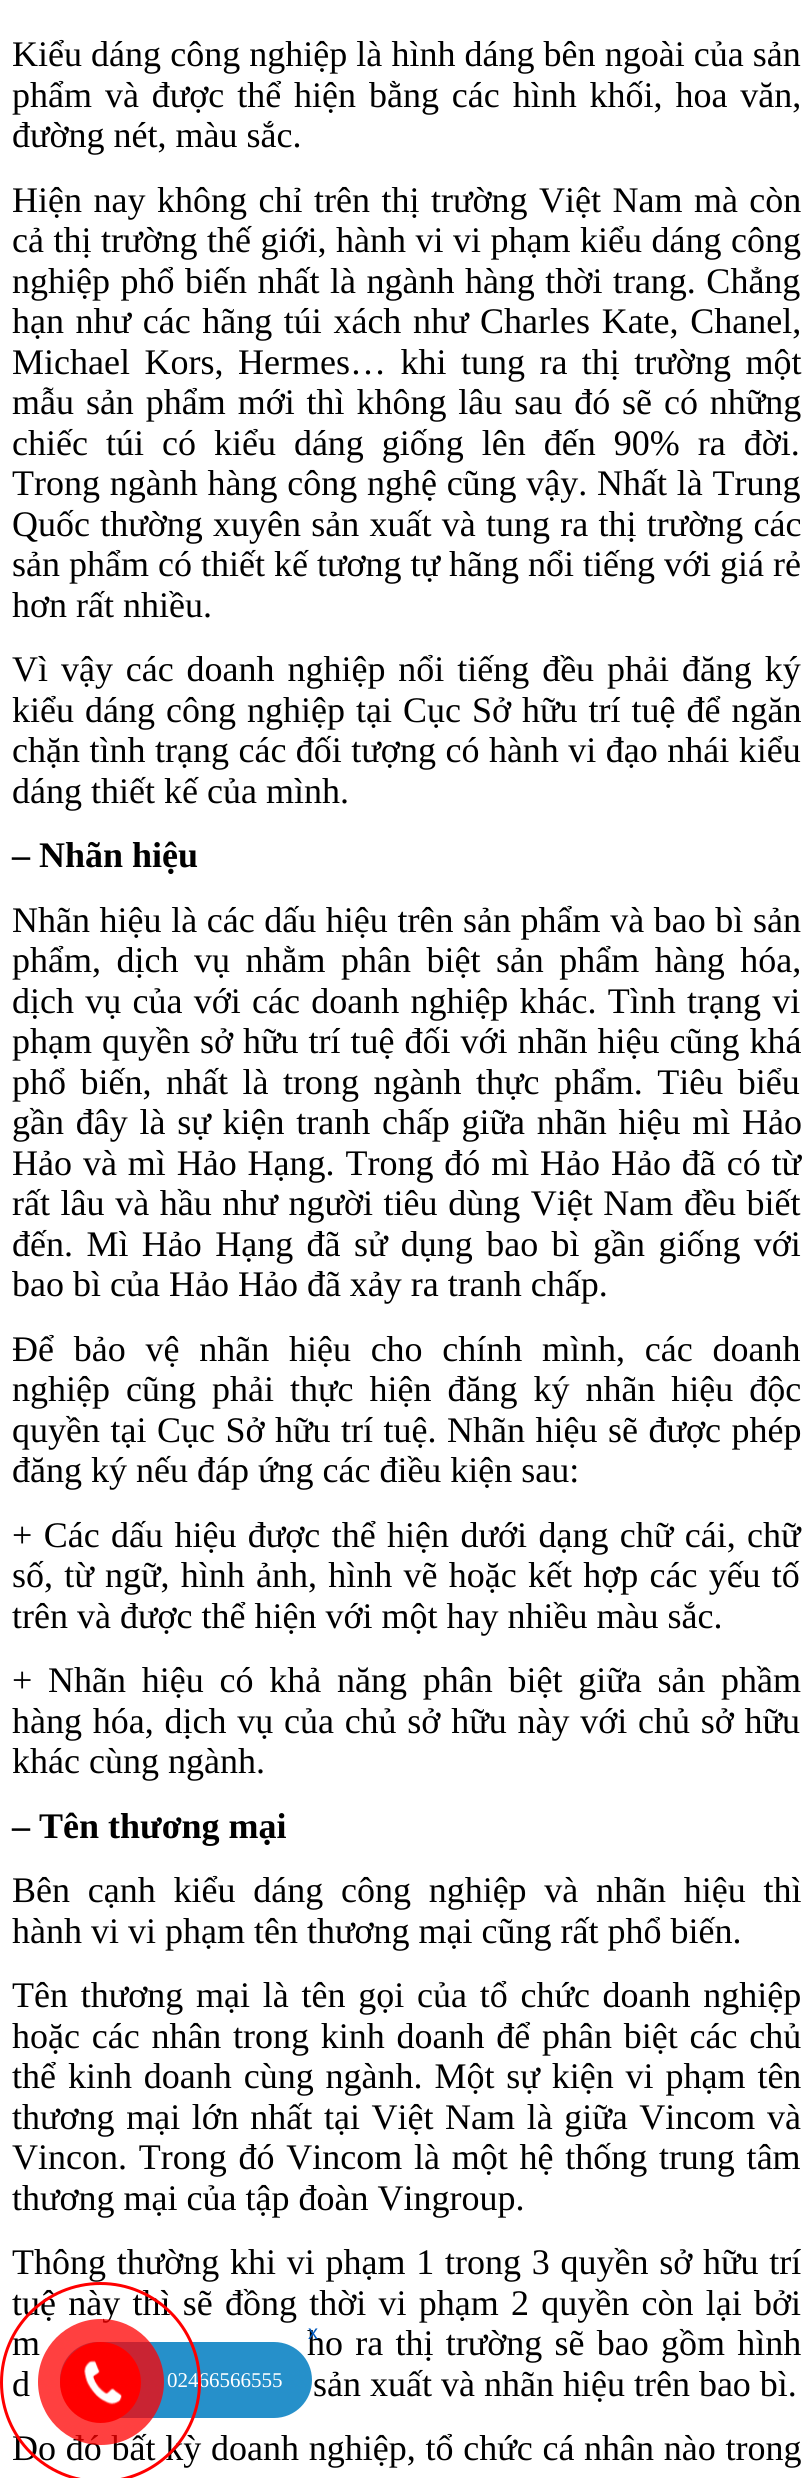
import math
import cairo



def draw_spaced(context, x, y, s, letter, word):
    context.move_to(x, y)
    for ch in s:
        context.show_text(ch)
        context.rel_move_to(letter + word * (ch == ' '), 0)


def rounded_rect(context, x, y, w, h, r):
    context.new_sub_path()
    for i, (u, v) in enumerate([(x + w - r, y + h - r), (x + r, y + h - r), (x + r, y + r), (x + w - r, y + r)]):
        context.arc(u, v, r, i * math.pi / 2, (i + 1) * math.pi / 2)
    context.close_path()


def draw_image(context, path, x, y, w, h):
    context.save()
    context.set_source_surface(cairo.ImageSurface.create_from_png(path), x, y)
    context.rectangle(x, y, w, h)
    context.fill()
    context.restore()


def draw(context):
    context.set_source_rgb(1, 1, 1)
    context.paint()
    context.select_font_face("Liberation Serif")
    context.set_font_size(36)
    context.set_source_rgb(0, 0, 0)
    draw_spaced(context, 12, 66, "Kiểu dáng công nghiệp là hình dáng bên ngoài của sản", 0, 0.1)
    draw_spaced(context, 12, 107, "phẩm và được thể hiện bằng các hình khối, hoa văn,", 0, 3.9)
    context.move_to(12, 147)
    context.show_text("đường nét, màu sắc.")
    draw_spaced(context, 12, 212, "Hiện nay không chỉ trên thị trường Việt Nam mà còn", 0, 2.5)
    draw_spaced(context, 12, 252, "cả thị trường thế giới, hành vi vi phạm kiểu dáng công", 0, 0.5)
    draw_spaced(context, 12, 293, "nghiệp phổ biến nhất là ngành hàng thời trang. Chẳng", 0, 1.5)
    draw_spaced(context, 12, 333, "hạn như các hãng túi xách như Charles Kate, Chanel,", 0, 2.6)
    draw_spaced(context, 12, 374, "Michael Kors, Hermes… khi tung ra thị trường một", 0, 5.5)
    draw_spaced(context, 12, 414, "mẫu sản phẩm mới thì không lâu sau đó sẽ có những", 0, 2.9)
    draw_spaced(context, 12, 455, "chiếc túi có kiểu dáng giống lên đến 90% ra đời.", 0, 9)
    draw_spaced(context, 12, 495, "Trong ngành hàng công nghệ cũng vậy. Nhất là Trung", 0, 0.75)
    draw_spaced(context, 12, 536, "Quốc thường xuyên sản xuất và tung ra thị trường các", 0, 1.25)
    context.move_to(12, 576)
    context.show_text("sản phẩm có thiết kế tương tự hãng nổi tiếng với giá rẻ")
    context.move_to(12, 617)
    context.show_text("hơn rất nhiều.")
    draw_spaced(context, 12, 681, "Vì vậy các doanh nghiệp nổi tiếng đều phải đăng ký", 0, 3.9)
    draw_spaced(context, 12, 722, "kiểu dáng công nghiệp tại Cục Sở hữu trí tuệ để ngăn", 0, 2)
    draw_spaced(context, 12, 762, "chặn tình trạng các đối tượng có hành vi đạo nhái kiểu", 0, 0.5)
    context.move_to(12, 803)
    context.show_text("dáng thiết kế của mình.")
    context.select_font_face("Liberation Serif", cairo.FontSlant.NORMAL, cairo.FontWeight.BOLD)
    context.move_to(12, 867)
    context.show_text("– Nhãn hiệu")
    context.select_font_face("Liberation Serif")
    draw_spaced(context, 12, 932, "Nhãn hiệu là các dấu hiệu trên sản phẩm và bao bì sản", 0, 0.6)
    draw_spaced(context, 12, 972, "phẩm, dịch vụ nhằm phân biệt sản phẩm hàng hóa,", 0, 6.5)
    draw_spaced(context, 12, 1013, "dịch vụ của với các doanh nghiệp khác. Tình trạng vi", 0, 2.25)
    draw_spaced(context, 12, 1053, "phạm quyền sở hữu trí tuệ đối với nhãn hiệu cũng khá", 0, 1)
    draw_spaced(context, 12, 1094, "phổ biến, nhất là trong ngành thực phẩm. Tiêu biểu", 0, 5.5)
    draw_spaced(context, 12, 1134, "gần đây là sự kiện tranh chấp giữa nhãn hiệu mì Hảo", 0, 2.75)
    draw_spaced(context, 12, 1175, "Hảo và mì Hảo Hạng. Trong đó mì Hảo Hảo đã có từ", 0, 1.9)
    draw_spaced(context, 12, 1215, "rất lâu và hầu như người tiêu dùng Việt Nam đều biết", 0, 1.6)
    draw_spaced(context, 12, 1256, "đến. Mì Hảo Hạng đã sử dụng bao bì gần giống với", 0, 4.4)
    context.move_to(12, 1296)
    context.show_text("bao bì của Hảo Hảo đã xảy ra tranh chấp.")
    draw_spaced(context, 12, 1361, "Để bảo vệ nhãn hiệu cho chính mình, các doanh", 0, 10.75)
    draw_spaced(context, 12, 1401, "nghiệp cũng phải thực hiện đăng ký nhãn hiệu độc", 0, 7)
    draw_spaced(context, 12, 1442, "quyền tại Cục Sở hữu trí tuệ. Nhãn hiệu sẽ được phép", 0, 1.5)
    context.move_to(12, 1482)
    context.show_text("đăng ký nếu đáp ứng các điều kiện sau:")
    draw_spaced(context, 12, 1547, "+ Các dấu hiệu được thể hiện dưới dạng chữ cái, chữ", 0, 2.4)
    draw_spaced(context, 12, 1587, "số, từ ngữ, hình ảnh, hình vẽ hoặc kết hợp các yếu tố", 0, 2.25)
    context.move_to(12, 1628)
    context.show_text("trên và được thể hiện với một hay nhiều màu sắc.")
    draw_spaced(context, 12, 1692, "+ Nhãn hiệu có khả năng phân biệt giữa sản phầm", 0, 6.75)
    draw_spaced(context, 12, 1733, "hàng hóa, dịch vụ của chủ sở hữu này với chủ sở hữu", 0, 1.75)
    context.move_to(12, 1773)
    context.show_text("khác cùng ngành.")
    context.select_font_face("Liberation Serif", cairo.FontSlant.NORMAL, cairo.FontWeight.BOLD)
    context.move_to(12, 1838)
    context.show_text("– Tên thương mại")
    context.select_font_face("Liberation Serif")
    draw_spaced(context, 12, 1902, "Bên cạnh kiểu dáng công nghiệp và nhãn hiệu thì", 0, 8.75)
    context.move_to(12, 1943)
    context.show_text("hành vi vi phạm tên thương mại cũng rất phổ biến.")
    draw_spaced(context, 12, 2007, "Tên thương mại là tên gọi của tổ chức doanh nghiệp", 0, 3.75)
    draw_spaced(context, 12, 2048, "hoặc các nhân trong kinh doanh để phân biệt các chủ", 0, 2.75)
    draw_spaced(context, 12, 2088, "thể kinh doanh cùng ngành. Một sự kiện vi phạm tên", 0, 2.9)
    draw_spaced(context, 12, 2129, "thương mại lớn nhất tại Việt Nam là giữa Vincom và", 0, 2.6)
    draw_spaced(context, 12, 2169, "Vincon. Trong đó Vincom là một hệ thống trung tâm", 0, 2.75)
    context.move_to(12, 2210)
    context.show_text("thương mại của tập đoàn Vingroup.")
    draw_spaced(context, 12, 2274, "Thông thường khi vi phạm 1 trong 3 quyền sở hữu trí", 0, 1.75)
    draw_spaced(context, 12, 2315, "tuệ này thì sẽ đồng thời vi phạm 2 quyền còn lại bởi", 0, 3.25)
    draw_spaced(context, 12, 2355, "m", 0, 3.25)
    draw_spaced(context, 307, 2355, "ho ra thị trường sẽ bao gồm hình", 0, 3.25)
    context.move_to(12, 2396)
    context.show_text("d")
    context.move_to(313, 2396)
    context.show_text("sản xuất và nhãn hiệu trên bao bì.")
    draw_spaced(context, 12, 2460, "Do đó bất kỳ doanh nghiệp, tổ chức cá nhân nào trong", 0, 0.75)
    context.set_source_rgb(38 / 255, 144 / 255, 202 / 255)
    rounded_rect(context, 60, 2342, 252, 76, 38)
    context.fill()
    context.select_font_face("Liberation Sans")
    context.set_font_size(20)
    context.set_source_rgb(0, 89 / 255, 189 / 255)
    context.move_to(308, 2339)
    context.show_text("x")
    context.select_font_face("Liberation Serif")
    context.set_font_size(21)
    context.set_source_rgb(1, 1, 1)
    context.move_to(167, 2387)
    context.show_text("02466566555")
    context.new_path()
    context.arc(100.5, 2382.5, 99, 0, 2 * math.pi)
    context.set_source_rgb(1, 0, 0)
    context.set_line_width(3)
    context.stroke()
    context.set_source_rgba(1, 0, 0, 0.75)
    context.arc(101, 2382, 63, 0, 2 * math.pi)
    context.fill()
    context.set_source_rgb(1, 0, 0)
    context.arc(100.5, 2382.5, 40.5, 0, 2 * math.pi)
    context.fill()
    draw_image(context, "images/1.png", 84, 2360, 38, 45)


surface = cairo.ImageSurface(cairo.Format.RGB24, 812, 2478)
context = cairo.Context(surface)
options = cairo.FontOptions()
options.set_hint_metrics(cairo.HintMetrics.OFF)
options.set_hint_style(cairo.HintStyle.NONE)
context.set_font_options(options)
context.set_miter_limit(4)
draw(context)
surface.write_to_png("out.png")
